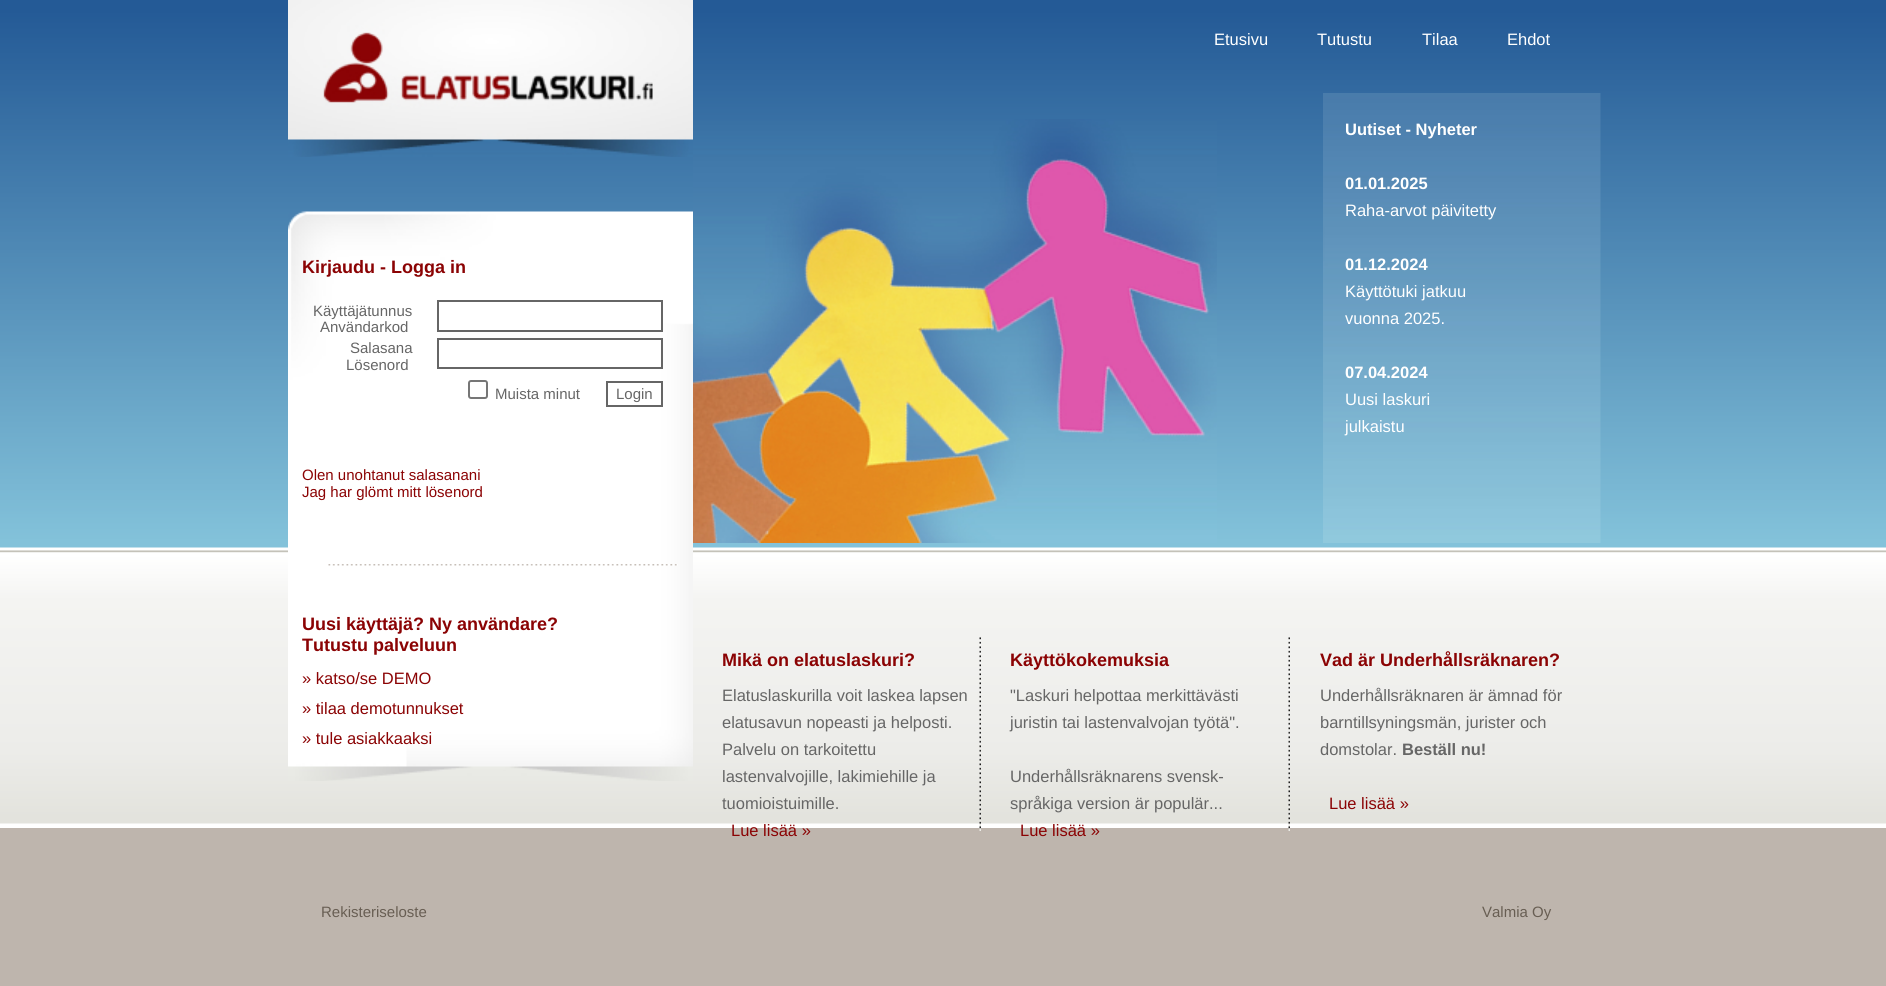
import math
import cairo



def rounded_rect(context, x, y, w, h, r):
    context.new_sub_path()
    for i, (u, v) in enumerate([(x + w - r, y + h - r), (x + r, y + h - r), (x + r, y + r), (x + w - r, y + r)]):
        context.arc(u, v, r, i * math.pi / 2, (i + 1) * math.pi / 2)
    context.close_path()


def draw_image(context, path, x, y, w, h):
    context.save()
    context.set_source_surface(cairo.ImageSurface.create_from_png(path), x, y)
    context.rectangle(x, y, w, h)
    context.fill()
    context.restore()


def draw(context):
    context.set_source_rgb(190 / 255, 181 / 255, 173 / 255)
    context.paint()
    draw_image(context, "images/1.png", 0, 0, 1886, 828)
    draw_image(context, "images/2.png", 288, 0, 405, 157)
    draw_image(context, "images/3.png", 288, 211, 405, 570)
    context.rectangle(438, 301, 224, 30)
    context.set_source_rgb(102 / 255, 102 / 255, 102 / 255)
    context.stroke()
    context.rectangle(438, 339, 224, 29)
    context.stroke()
    rounded_rect(context, 469, 381, 18, 17, 2)
    context.set_source_rgb(118 / 255, 118 / 255, 118 / 255)
    context.stroke()
    context.rectangle(607, 382, 55, 24)
    context.set_source_rgb(102 / 255, 102 / 255, 102 / 255)
    context.stroke()
    draw_image(context, "images/4.png", 328, 564, 350, 2)
    draw_image(context, "images/5.png", 693, 119, 524, 424)
    draw_image(context, "images/6.png", 1323, 93, 278, 450)
    draw_image(context, "images/7.png", 979, 637, 2, 194)
    draw_image(context, "images/7.png", 1288, 637, 2, 194)
    context.select_font_face("Liberation Sans", cairo.FontSlant.NORMAL, cairo.FontWeight.BOLD)
    context.set_font_size(18)
    context.set_source_rgb(139 / 255, 3 / 255, 4 / 255)
    context.move_to(302, 273)
    context.show_text("Kirjaudu - Logga in")
    context.select_font_face("Liberation Sans")
    context.set_font_size(15)
    context.set_source_rgb(102 / 255, 102 / 255, 102 / 255)
    context.move_to(313, 316)
    context.show_text("Käyttäjätunnus")
    context.move_to(320, 332)
    context.show_text("Användarkod")
    context.move_to(350, 353)
    context.show_text("Salasana")
    context.move_to(346, 370)
    context.show_text("Lösenord")
    context.move_to(495, 399)
    context.show_text("Muista minut")
    context.move_to(616, 399)
    context.show_text("Login")
    context.set_source_rgb(139 / 255, 3 / 255, 4 / 255)
    context.move_to(302, 480)
    context.show_text("Olen unohtanut salasanani")
    context.move_to(302, 497)
    context.show_text("Jag har glömt mitt lösenord")
    context.select_font_face("Liberation Sans", cairo.FontSlant.NORMAL, cairo.FontWeight.BOLD)
    context.set_font_size(18)
    context.move_to(302, 630)
    context.show_text("Uusi käyttäjä? Ny användare?")
    context.move_to(302, 651)
    context.show_text("Tutustu palveluun")
    context.select_font_face("Liberation Sans")
    context.set_font_size(16.5)
    context.move_to(302, 684)
    context.show_text("» katso/se DEMO")
    context.move_to(302, 714)
    context.show_text("» tilaa demotunnukset")
    context.move_to(302, 744)
    context.show_text("» tule asiakkaaksi")
    context.set_source_rgb(1, 1, 1)
    context.move_to(1214, 45)
    context.show_text("Etusivu")
    context.move_to(1317, 45)
    context.show_text("Tutustu")
    context.move_to(1422, 45)
    context.show_text("Tilaa")
    context.move_to(1507, 45)
    context.show_text("Ehdot")
    context.select_font_face("Liberation Sans", cairo.FontSlant.NORMAL, cairo.FontWeight.BOLD)
    context.move_to(1345, 135)
    context.show_text("Uutiset - Nyheter")
    context.move_to(1345, 189)
    context.show_text("01.01.2025")
    context.select_font_face("Liberation Sans")
    context.move_to(1345, 216)
    context.show_text("Raha-arvot päivitetty")
    context.select_font_face("Liberation Sans", cairo.FontSlant.NORMAL, cairo.FontWeight.BOLD)
    context.move_to(1345, 270)
    context.show_text("01.12.2024")
    context.select_font_face("Liberation Sans")
    context.move_to(1345, 297)
    context.show_text("Käyttötuki jatkuu")
    context.move_to(1345, 324)
    context.show_text("vuonna 2025.")
    context.select_font_face("Liberation Sans", cairo.FontSlant.NORMAL, cairo.FontWeight.BOLD)
    context.move_to(1345, 378)
    context.show_text("07.04.2024")
    context.select_font_face("Liberation Sans")
    context.move_to(1345, 405)
    context.show_text("Uusi laskuri")
    context.move_to(1345, 432)
    context.show_text("julkaistu")
    context.select_font_face("Liberation Sans", cairo.FontSlant.NORMAL, cairo.FontWeight.BOLD)
    context.set_font_size(18)
    context.set_source_rgb(139 / 255, 3 / 255, 4 / 255)
    context.move_to(722, 666)
    context.show_text("Mikä on elatuslaskuri?")
    context.select_font_face("Liberation Sans")
    context.set_font_size(16.5)
    context.set_source_rgb(102 / 255, 102 / 255, 102 / 255)
    context.move_to(722, 701)
    context.show_text("Elatuslaskurilla voit laskea lapsen")
    context.move_to(722, 728)
    context.show_text("elatusavun nopeasti ja helposti.")
    context.move_to(722, 755)
    context.show_text("Palvelu on tarkoitettu")
    context.move_to(722, 782)
    context.show_text("lastenvalvojille, lakimiehille ja")
    context.move_to(722, 809)
    context.show_text("tuomioistuimille.")
    context.set_source_rgb(139 / 255, 3 / 255, 4 / 255)
    context.move_to(731, 836)
    context.show_text("Lue lisää »")
    context.select_font_face("Liberation Sans", cairo.FontSlant.NORMAL, cairo.FontWeight.BOLD)
    context.set_font_size(18)
    context.move_to(1010, 666)
    context.show_text("Käyttökokemuksia")
    context.select_font_face("Liberation Sans")
    context.set_font_size(16.5)
    context.set_source_rgb(102 / 255, 102 / 255, 102 / 255)
    context.move_to(1010, 701)
    context.show_text("\"Laskuri helpottaa merkittävästi")
    context.move_to(1010, 728)
    context.show_text("juristin tai lastenvalvojan työtä\".")
    context.move_to(1010, 782)
    context.show_text("Underhållsräknarens svensk-")
    context.move_to(1010, 809)
    context.show_text("språkiga version är populär...")
    context.set_source_rgb(139 / 255, 3 / 255, 4 / 255)
    context.move_to(1020, 836)
    context.show_text("Lue lisää »")
    context.select_font_face("Liberation Sans", cairo.FontSlant.NORMAL, cairo.FontWeight.BOLD)
    context.set_font_size(18)
    context.move_to(1320, 666)
    context.show_text("Vad är Underhållsräknaren?")
    context.select_font_face("Liberation Sans")
    context.set_font_size(16.5)
    context.set_source_rgb(102 / 255, 102 / 255, 102 / 255)
    context.move_to(1320, 701)
    context.show_text("Underhållsräknaren är ämnad för")
    context.move_to(1320, 728)
    context.show_text("barntillsyningsmän, jurister och")
    context.move_to(1320, 755)
    context.show_text("domstolar.")
    context.select_font_face("Liberation Sans", cairo.FontSlant.NORMAL, cairo.FontWeight.BOLD)
    context.move_to(1402, 755)
    context.show_text("Beställ nu!")
    context.select_font_face("Liberation Sans")
    context.set_source_rgb(139 / 255, 3 / 255, 4 / 255)
    context.move_to(1329, 809)
    context.show_text("Lue lisää »")
    context.set_font_size(15)
    context.set_source_rgb(104 / 255, 94 / 255, 83 / 255)
    context.move_to(321, 917)
    context.show_text("Rekisteriseloste")
    context.move_to(1482, 917)
    context.show_text("Valmia Oy")


surface = cairo.ImageSurface(cairo.Format.RGB24, 1886, 986)
context = cairo.Context(surface)
options = cairo.FontOptions()
options.set_hint_metrics(cairo.HintMetrics.OFF)
options.set_hint_style(cairo.HintStyle.NONE)
context.set_font_options(options)
context.set_miter_limit(4)
draw(context)
surface.write_to_png("out.png")
